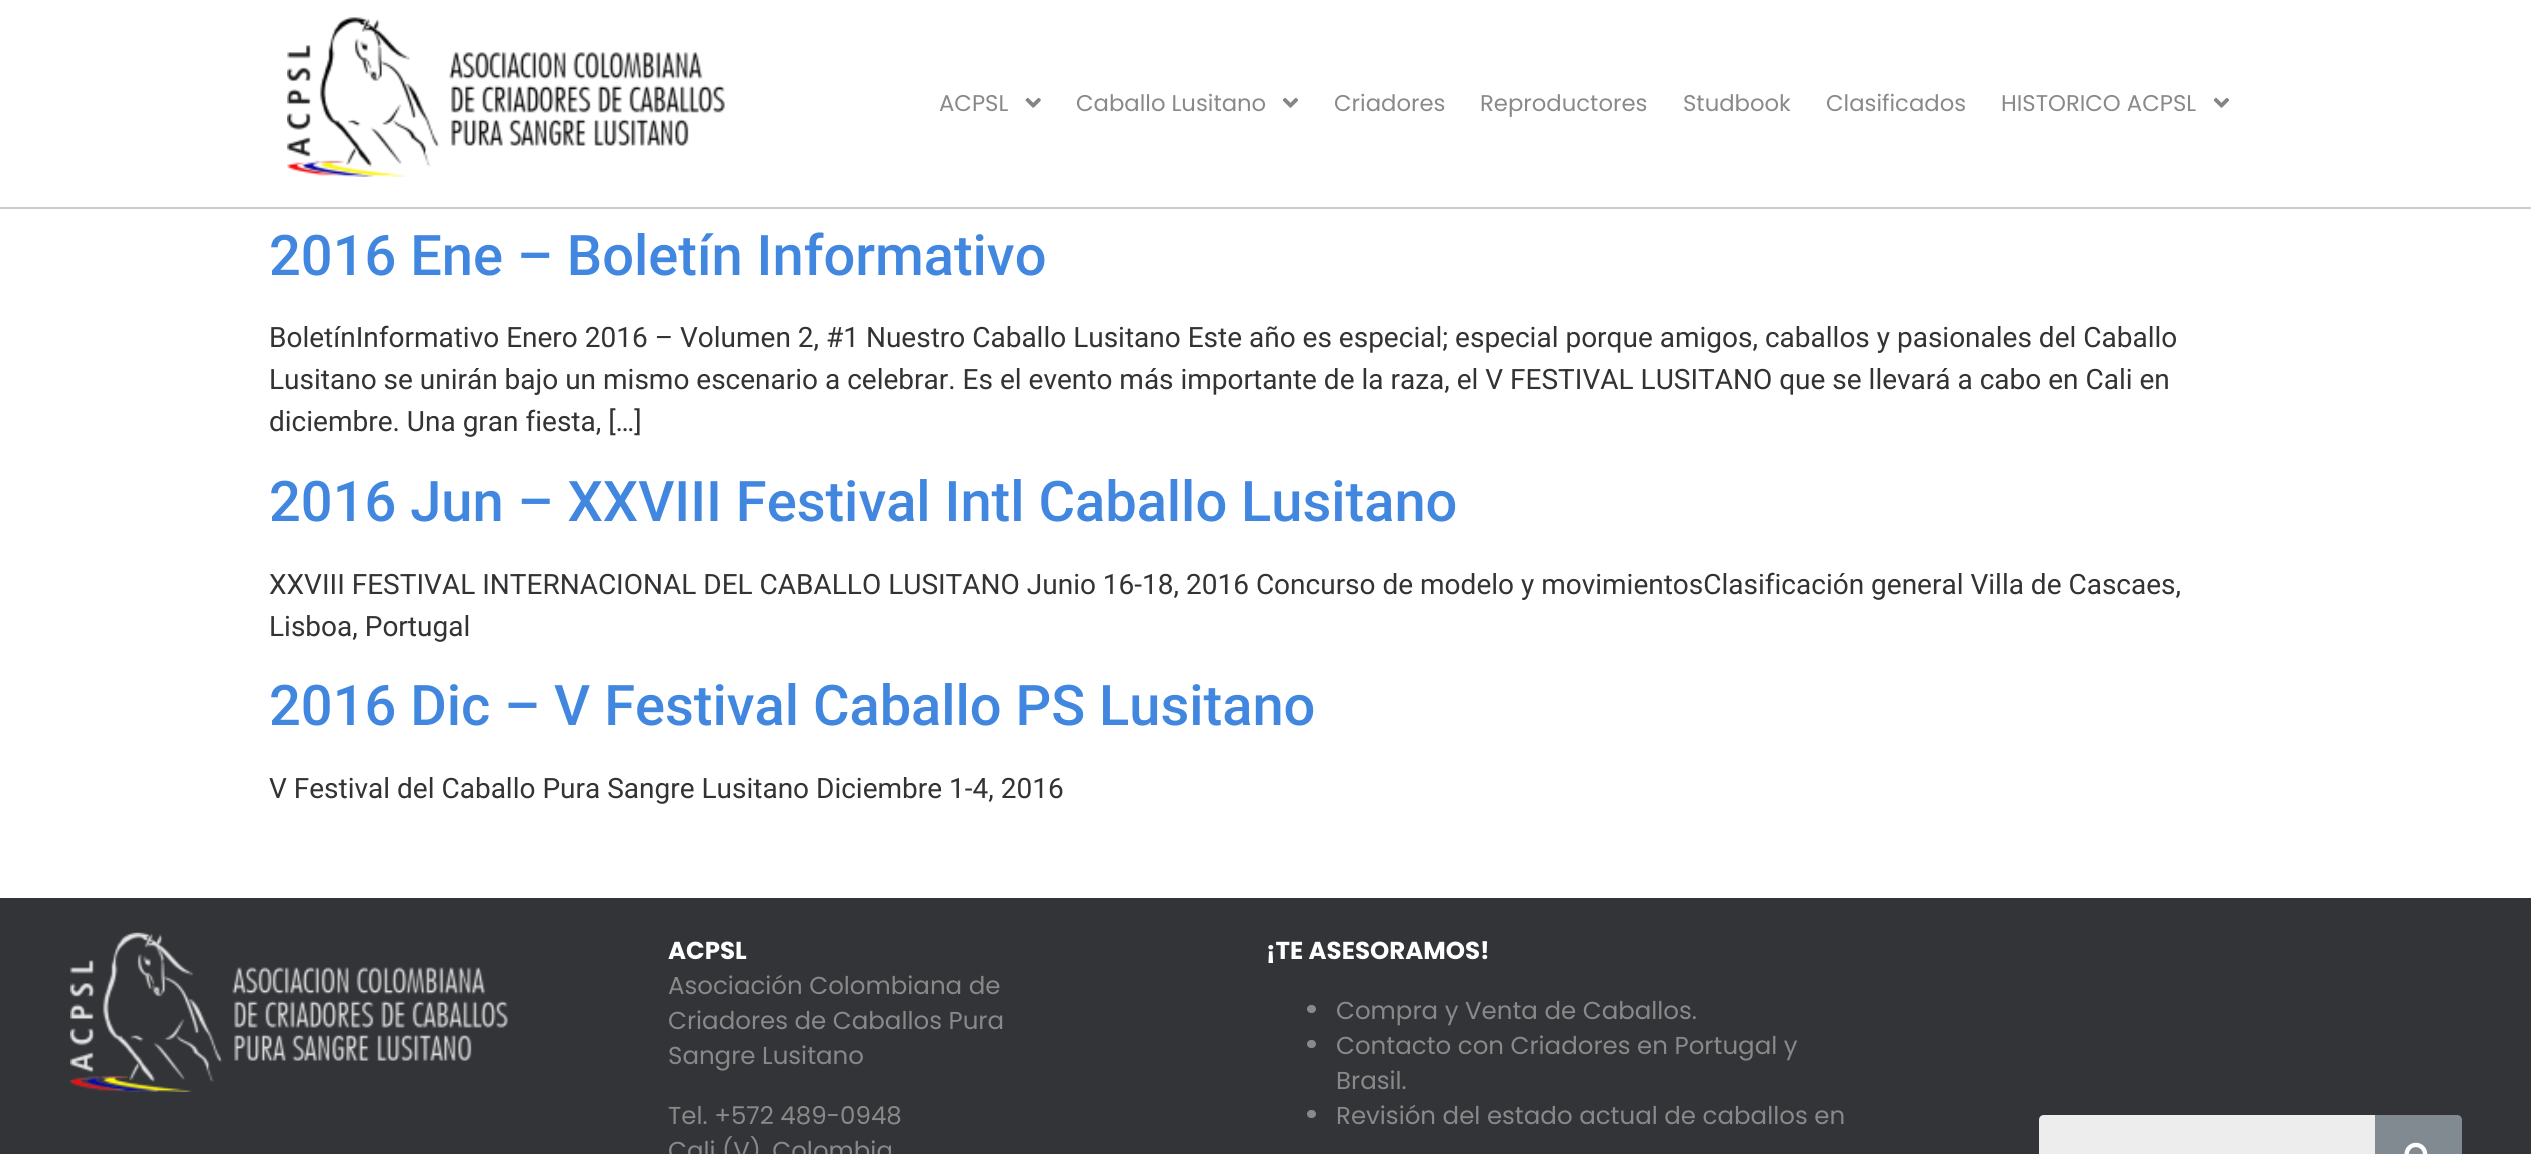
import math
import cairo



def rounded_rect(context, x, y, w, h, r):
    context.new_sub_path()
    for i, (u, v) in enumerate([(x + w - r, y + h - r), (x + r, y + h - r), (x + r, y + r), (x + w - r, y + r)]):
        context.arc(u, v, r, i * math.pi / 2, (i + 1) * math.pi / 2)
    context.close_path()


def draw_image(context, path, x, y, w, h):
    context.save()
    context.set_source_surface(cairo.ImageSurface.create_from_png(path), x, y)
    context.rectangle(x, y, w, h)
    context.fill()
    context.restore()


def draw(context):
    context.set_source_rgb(1, 1, 1)
    context.paint()
    context.set_source_rgb(204 / 255, 204 / 255, 204 / 255)
    context.rectangle(0, 207, 2531, 2)
    context.fill()
    draw_image(context, "images/1.png", 287, 17, 438, 160)
    draw_image(context, "images/2.png", 1025, 97, 16, 11)
    draw_image(context, "images/3.png", 1282, 97, 17, 11)
    draw_image(context, "images/3.png", 2213, 97, 17, 11)
    context.set_source_rgb(50 / 255, 52 / 255, 55 / 255)
    context.rectangle(0, 898, 2531, 256)
    context.fill()
    draw_image(context, "images/4.png", 70, 932, 438, 160)
    context.set_source_rgb(136 / 255, 137 / 255, 137 / 255)
    rounded_rect(context, 1307, 1005, 9, 8, 4)
    context.fill()
    rounded_rect(context, 1307, 1040, 9, 8, 4)
    context.fill()
    rounded_rect(context, 1307, 1110, 9, 8, 4)
    context.fill()
    context.set_source_rgb(237 / 255, 237 / 255, 237 / 255)
    context.new_path()
    context.move_to(2044, 1115)
    context.line_to(2375, 1115)
    context.line_to(2375, 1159)
    context.line_to(2044, 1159)
    context.curve_to(2041, 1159, 2039, 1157, 2039, 1154)
    context.line_to(2039, 1120)
    context.curve_to(2039, 1117, 2041, 1115, 2044, 1115)
    context.close_path()
    context.fill()
    context.set_source_rgb(129 / 255, 138 / 255, 145 / 255)
    context.new_path()
    context.move_to(2375, 1115)
    context.line_to(2457, 1115)
    context.curve_to(2460, 1115, 2462, 1117, 2462, 1120)
    context.line_to(2462, 1154)
    context.curve_to(2462, 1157, 2460, 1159, 2457, 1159)
    context.line_to(2375, 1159)
    context.close_path()
    context.fill()
    draw_image(context, "images/5.png", 2404, 1142, 24, 12)
    context.select_font_face("Poppins")
    context.set_font_size(22.75)
    context.set_source_rgb(136 / 255, 137 / 255, 137 / 255)
    context.move_to(939, 111)
    context.show_text("ACPSL")
    context.move_to(1076, 111)
    context.show_text("Caballo Lusitano")
    context.move_to(1334, 111)
    context.show_text("Criadores")
    context.move_to(1480, 111)
    context.show_text("Reproductores")
    context.move_to(1683, 111)
    context.show_text("Studbook")
    context.move_to(1826, 111)
    context.show_text("Clasificados")
    context.move_to(2001, 111)
    context.show_text("HISTORICO ACPSL")
    context.select_font_face("Roboto Medium")
    context.set_font_size(56)
    context.set_source_rgb(65 / 255, 134 / 255, 223 / 255)
    context.move_to(269, 275)
    context.show_text("2016 Ene – Boletín Informativo")
    context.select_font_face("Roboto")
    context.set_font_size(28)
    context.set_source_rgb(51 / 255, 51 / 255, 51 / 255)
    context.move_to(269, 347)
    context.show_text("BoletínInformativo Enero 2016 – Volumen 2, #1 Nuestro Caballo Lusitano Este año es especial; especial porque amigos, caballos y pasionales del Caballo")
    context.move_to(269, 389)
    context.show_text("Lusitano se unirán bajo un mismo escenario a celebrar. Es el evento más importante de la raza, el V FESTIVAL LUSITANO que se llevará a cabo en Cali en")
    context.move_to(269, 431)
    context.show_text("diciembre. Una gran fiesta, […]")
    context.select_font_face("Roboto Medium")
    context.set_font_size(56)
    context.set_source_rgb(65 / 255, 134 / 255, 223 / 255)
    context.move_to(269, 521)
    context.show_text("2016 Jun – XXVIII Festival Intl Caballo Lusitano")
    context.select_font_face("Roboto")
    context.set_font_size(28)
    context.set_source_rgb(51 / 255, 51 / 255, 51 / 255)
    context.move_to(269, 594)
    context.show_text("XXVIII FESTIVAL INTERNACIONAL DEL CABALLO LUSITANO Junio 16-18, 2016 Concurso de modelo y movimientosClasificación general Villa de Cascaes,")
    context.move_to(269, 636)
    context.show_text("Lisboa, Portugal")
    context.select_font_face("Roboto Medium")
    context.set_font_size(56)
    context.set_source_rgb(65 / 255, 134 / 255, 223 / 255)
    context.move_to(269, 725)
    context.show_text("2016 Dic – V Festival Caballo PS Lusitano")
    context.select_font_face("Roboto")
    context.set_font_size(28)
    context.set_source_rgb(51 / 255, 51 / 255, 51 / 255)
    context.move_to(269, 798)
    context.show_text("V Festival del Caballo Pura Sangre Lusitano Diciembre 1-4, 2016")
    context.select_font_face("Poppins", cairo.FontSlant.NORMAL, cairo.FontWeight.BOLD)
    context.set_font_size(24.5)
    context.set_source_rgb(1, 1, 1)
    context.move_to(668, 959)
    context.show_text("ACPSL")
    context.select_font_face("Poppins")
    context.set_source_rgb(136 / 255, 137 / 255, 137 / 255)
    context.move_to(668, 994)
    context.show_text("Asociación Colombiana de")
    context.move_to(668, 1029)
    context.show_text("Criadores de Caballos Pura")
    context.move_to(668, 1064)
    context.show_text("Sangre Lusitano")
    context.move_to(668, 1124)
    context.show_text("Tel. +572 489-0948")
    context.move_to(668, 1159)
    context.show_text("Cali (V), Colombia")
    context.select_font_face("Poppins", cairo.FontSlant.NORMAL, cairo.FontWeight.BOLD)
    context.set_source_rgb(1, 1, 1)
    context.move_to(1266, 959)
    context.show_text("¡TE ASESORAMOS!")
    context.select_font_face("Poppins")
    context.set_source_rgb(136 / 255, 137 / 255, 137 / 255)
    context.move_to(1336, 1019)
    context.show_text("Compra y Venta de Caballos.")
    context.move_to(1336, 1054)
    context.show_text("Contacto con Criadores en Portugal y")
    context.move_to(1336, 1089)
    context.show_text("Brasil.")
    context.move_to(1336, 1124)
    context.show_text("Revisión del estado actual de caballos en")


surface = cairo.ImageSurface(cairo.Format.RGB24, 2531, 1154)
context = cairo.Context(surface)
options = cairo.FontOptions()
options.set_hint_metrics(cairo.HintMetrics.OFF)
options.set_hint_style(cairo.HintStyle.NONE)
context.set_font_options(options)
context.set_miter_limit(4)
draw(context)
surface.write_to_png("out.png")
